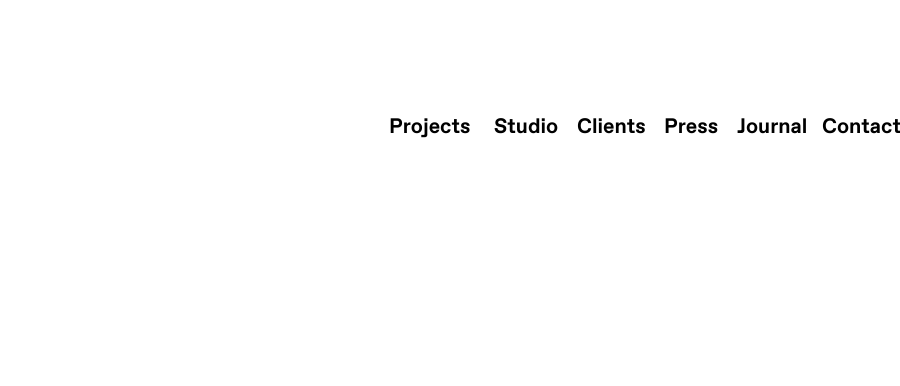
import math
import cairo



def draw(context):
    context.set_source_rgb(1, 1, 1)
    context.paint()
    context.select_font_face("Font", cairo.FontSlant.NORMAL, cairo.FontWeight.BOLD)
    context.set_font_size(21)
    context.set_source_rgb(0, 0, 0)
    context.move_to(389, 133)
    context.show_text("Projects")
    context.move_to(494, 133)
    context.show_text("Studio")
    context.move_to(577, 133)
    context.show_text("Clients")
    context.move_to(664, 133)
    context.show_text("Press")
    context.move_to(737, 133)
    context.show_text("Journal")
    context.move_to(822, 133)
    context.show_text("Contact")


surface = cairo.ImageSurface(cairo.Format.RGB24, 900, 386)
context = cairo.Context(surface)
options = cairo.FontOptions()
options.set_hint_metrics(cairo.HintMetrics.OFF)
options.set_hint_style(cairo.HintStyle.NONE)
context.set_font_options(options)
context.set_miter_limit(4)
draw(context)
surface.write_to_png("out.png")
